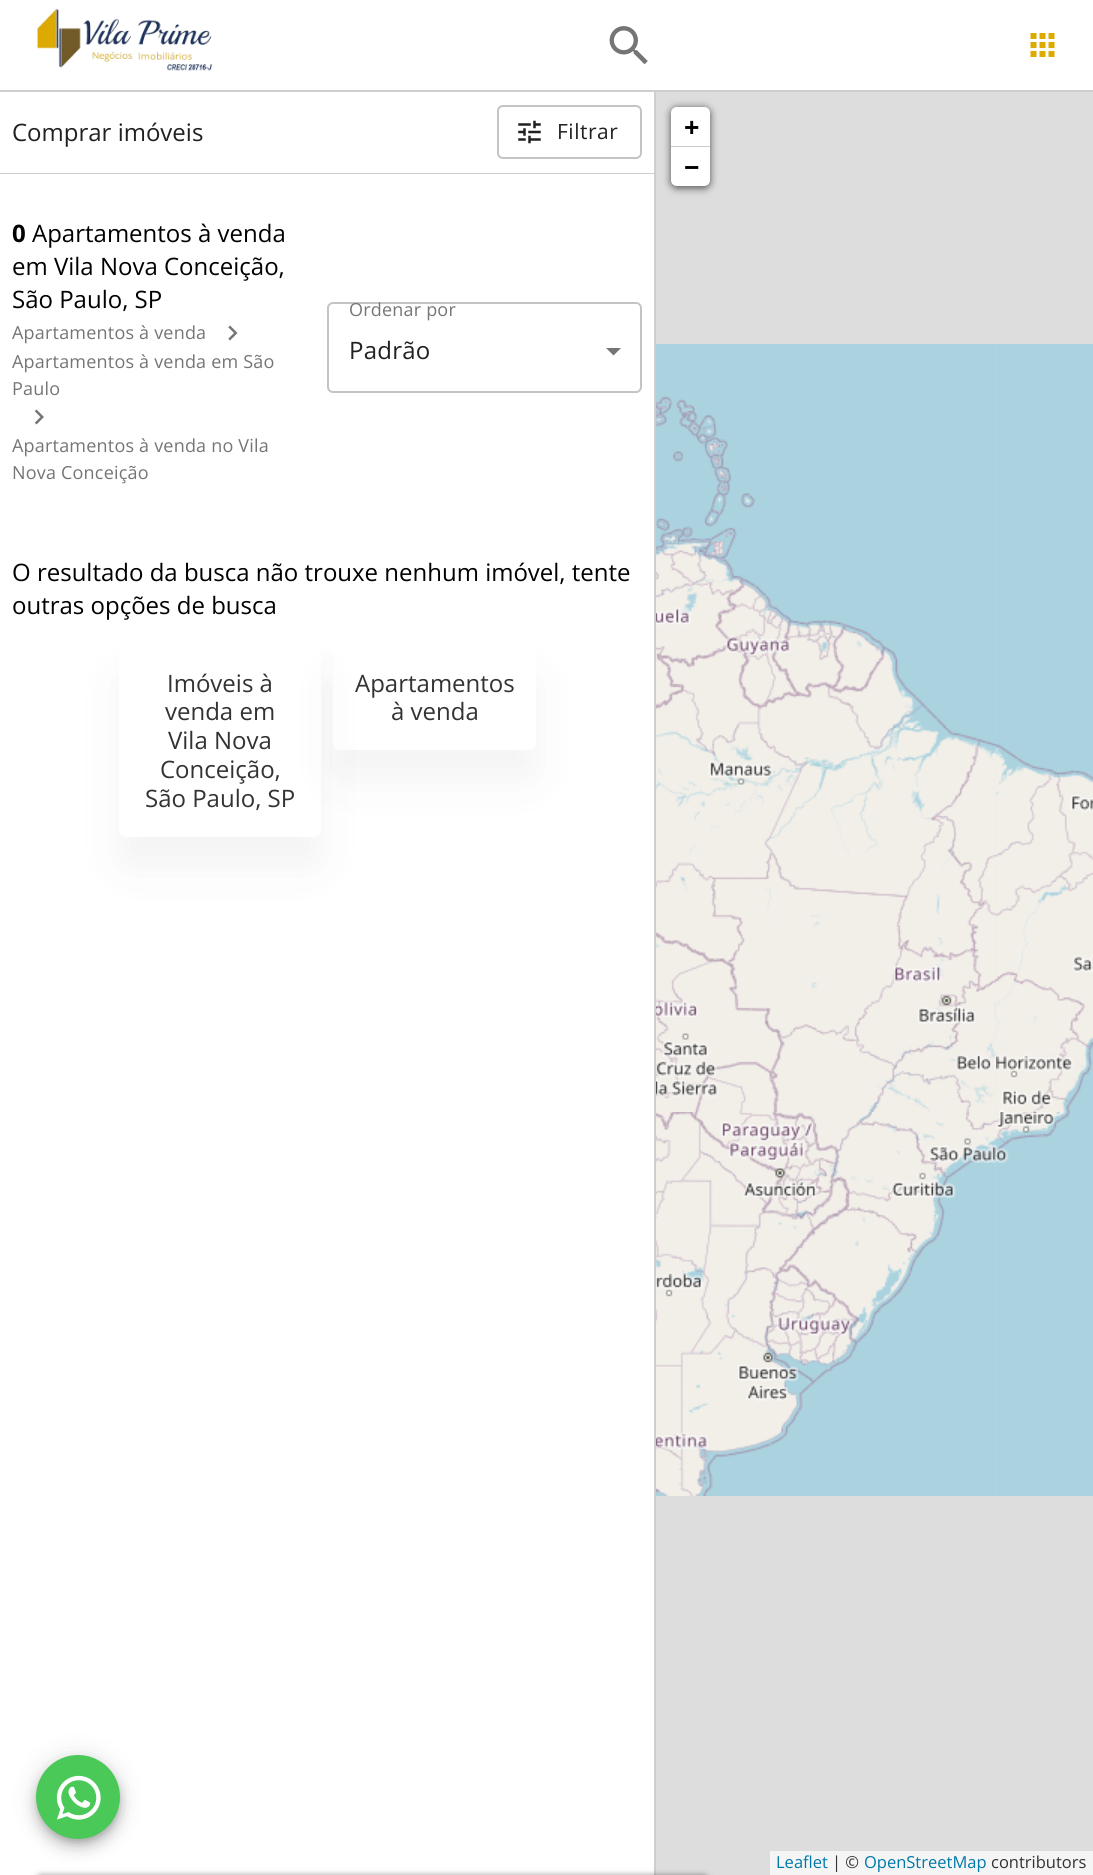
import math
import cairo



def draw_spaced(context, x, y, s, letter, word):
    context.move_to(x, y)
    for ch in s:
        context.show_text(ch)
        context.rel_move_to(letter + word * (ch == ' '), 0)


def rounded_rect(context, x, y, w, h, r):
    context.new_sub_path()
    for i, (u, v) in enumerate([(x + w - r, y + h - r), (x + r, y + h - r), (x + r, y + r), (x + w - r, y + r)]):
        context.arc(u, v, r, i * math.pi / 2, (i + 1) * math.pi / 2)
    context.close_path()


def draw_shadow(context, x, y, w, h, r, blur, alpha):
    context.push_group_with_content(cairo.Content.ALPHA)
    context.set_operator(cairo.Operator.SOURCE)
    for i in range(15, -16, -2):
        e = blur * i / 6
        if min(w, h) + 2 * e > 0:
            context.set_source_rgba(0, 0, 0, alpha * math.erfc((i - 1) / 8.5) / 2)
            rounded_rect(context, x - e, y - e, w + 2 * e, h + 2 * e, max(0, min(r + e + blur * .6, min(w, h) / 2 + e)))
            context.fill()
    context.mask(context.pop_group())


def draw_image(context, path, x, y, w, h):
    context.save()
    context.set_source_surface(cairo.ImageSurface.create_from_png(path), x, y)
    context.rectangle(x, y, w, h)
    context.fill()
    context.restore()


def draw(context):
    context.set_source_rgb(1, 1, 1)
    context.paint()
    draw_image(context, "images/1.png", 36, 8, 176, 63)
    draw_image(context, "images/2.png", 609, 26, 39, 39)
    draw_image(context, "images/3.png", 1030, 33, 25, 24)
    context.set_source_rgb(206 / 255, 206 / 255, 206 / 255)
    context.rectangle(0, 90, 1093, 2)
    context.fill()
    context.rectangle(654, 92, 2, 1783)
    context.fill()
    context.rectangle(0, 173, 654, 1)
    context.fill()
    rounded_rect(context, 498, 106, 143, 52, 5)
    context.set_source_rgb(196 / 255, 196 / 255, 196 / 255)
    context.stroke()
    draw_image(context, "images/4.png", 518, 120, 23, 24)
    draw_image(context, "images/5.png", 228, 325, 10, 16)
    draw_image(context, "images/6.png", 34, 409, 10, 16)
    context.set_source_rgb(117 / 255, 117 / 255, 117 / 255)
    context.new_path()
    context.move_to(606, 348)
    context.line_to(613.5, 355.5)
    context.line_to(621, 348)
    context.close_path()
    context.fill()
    rounded_rect(context, 328, 303, 313, 89, 5)
    context.set_source_rgb(196 / 255, 196 / 255, 196 / 255)
    context.stroke()
    context.save()
    context.set_fill_rule(cairo.FillRule.EVEN_ODD)
    context.new_path()
    context.move_to(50, 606)
    context.line_to(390, 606)
    context.line_to(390, 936)
    context.line_to(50, 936)
    context.close_path()
    context.move_to(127, 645)
    context.line_to(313, 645)
    context.curve_to(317.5, 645, 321, 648.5, 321, 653)
    context.line_to(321, 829)
    context.curve_to(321, 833.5, 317.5, 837, 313, 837)
    context.line_to(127, 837)
    context.curve_to(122.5, 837, 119, 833.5, 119, 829)
    context.line_to(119, 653)
    context.curve_to(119, 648.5, 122.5, 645, 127, 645)
    context.close_path()
    context.clip()
    context.set_source_rgb(51 / 255, 51 / 255, 51 / 255)
    draw_shadow(context, 119, 675, 202, 192, 8, 22.5, 0.06)
    context.restore()
    context.save()
    context.set_fill_rule(cairo.FillRule.EVEN_ODD)
    context.new_path()
    context.move_to(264, 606)
    context.line_to(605, 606)
    context.line_to(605, 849)
    context.line_to(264, 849)
    context.close_path()
    context.move_to(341, 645)
    context.line_to(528, 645)
    context.curve_to(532.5, 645, 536, 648.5, 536, 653)
    context.line_to(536, 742)
    context.curve_to(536, 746.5, 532.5, 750, 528, 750)
    context.line_to(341, 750)
    context.curve_to(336.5, 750, 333, 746.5, 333, 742)
    context.line_to(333, 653)
    context.curve_to(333, 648.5, 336.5, 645, 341, 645)
    context.close_path()
    context.clip()
    context.set_source_rgb(51 / 255, 51 / 255, 51 / 255)
    draw_shadow(context, 333, 675, 203, 105, 8, 22.5, 0.06)
    context.restore()
    context.set_source_rgb(221 / 255, 221 / 255, 221 / 255)
    context.rectangle(656, 92, 437, 1783)
    context.fill()
    context.set_source_rgb(0, 0, 0)
    draw_shadow(context, 671, 108, 39, 80, 6, 4, 0.65)
    context.set_source_rgb(1, 1, 1)
    context.new_path()
    context.move_to(677, 107)
    context.line_to(704, 107)
    context.curve_to(707.5, 107, 710, 109.5, 710, 113)
    context.line_to(710, 147)
    context.line_to(671, 147)
    context.line_to(671, 113)
    context.curve_to(671, 109.5, 673.5, 107, 677, 107)
    context.close_path()
    context.fill()
    context.set_source_rgb(204 / 255, 204 / 255, 204 / 255)
    context.rectangle(671, 146, 39, 1)
    context.fill()
    context.set_source_rgb(1, 1, 1)
    context.new_path()
    context.move_to(671, 147)
    context.line_to(710, 147)
    context.line_to(710, 180)
    context.curve_to(710, 183.5, 707.5, 186, 704, 186)
    context.line_to(677, 186)
    context.curve_to(673.5, 186, 671, 183.5, 671, 180)
    context.close_path()
    context.fill()
    context.set_source_rgb(245 / 255, 245 / 255, 245 / 255)
    context.rectangle(770, 1851, 323, 24)
    context.fill()
    draw_image(context, "images/7.png", 656, 344, 340, 384)
    context.set_source_rgb(170 / 255, 211 / 255, 223 / 255)
    context.rectangle(996, 344, 97, 384)
    context.fill()
    draw_image(context, "images/8.png", 656, 728, 340, 384)
    draw_image(context, "images/9.png", 996, 728, 97, 384)
    draw_image(context, "images/10.png", 656, 1112, 340, 384)
    draw_image(context, "images/11.png", 996, 1112, 97, 384)
    context.set_source_rgb(0, 0, 0)
    draw_shadow(context, 36, 1757, 84, 84, 42, 13.5, 0.12)
    draw_shadow(context, 36, 1764, 84, 84, 42, 7.5, 0.14)
    draw_shadow(context, 38, 1761, 81, 81, 40.5, 4, 0.2)
    context.set_source_rgb(74 / 255, 201 / 255, 89 / 255)
    context.arc(78, 1797, 42, 0, 2 * math.pi)
    context.fill()
    draw_image(context, "images/12.png", 56, 1775, 45, 45)
    context.set_source_rgb(0, 0, 0)
    draw_shadow(context, 35, 1875, 675, 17, 8, 3, 0.4)
    context.select_font_face("Open Sans")
    context.set_font_size(24)
    context.set_source_rgb(33 / 255, 33 / 255, 33 / 255)
    context.move_to(12, 141)
    context.show_text("Comprar imóveis")
    context.set_font_size(21)
    draw_spaced(context, 557, 139, "Filtrar", 0.5, 0)
    context.select_font_face("Open Sans", cairo.FontSlant.NORMAL, cairo.FontWeight.BOLD)
    context.set_font_size(24)
    context.set_source_rgb(0, 0, 0)
    context.move_to(12, 242)
    context.show_text("0")
    context.select_font_face("Open Sans")
    context.move_to(32, 242)
    context.show_text("Apartamentos à venda")
    context.move_to(12, 275)
    context.show_text("em Vila Nova Conceição,")
    context.move_to(12, 308)
    context.show_text("São Paulo, SP")
    context.set_font_size(18)
    context.set_source_rgb(117 / 255, 117 / 255, 117 / 255)
    draw_spaced(context, 12, 339, "Apartamentos à venda", 0.2, 0)
    draw_spaced(context, 12, 368, "Apartamentos à venda em São", 0.2, 0)
    draw_spaced(context, 12, 395, "Paulo", 0.2, 0)
    draw_spaced(context, 12, 452, "Apartamentos à venda no Vila", 0.2, 0)
    draw_spaced(context, 12, 479, "Nova Conceição", 0.2, 0)
    draw_spaced(context, 349, 316, "Ordenar por", 0.2, 0)
    context.set_font_size(24)
    context.set_source_rgb(33 / 255, 33 / 255, 33 / 255)
    draw_spaced(context, 349, 359, "Padrão", 0.25, 0)
    context.set_source_rgb(0, 0, 0)
    context.move_to(12, 581)
    context.show_text("O resultado da busca não trouxe nenhum imóvel, tente")
    context.move_to(12, 614)
    context.show_text("outras opções de busca")
    context.set_source_rgb(51 / 255, 51 / 255, 51 / 255)
    context.move_to(167, 692)
    context.show_text("Imóveis à")
    context.move_to(165, 720)
    context.show_text("venda em")
    context.move_to(168, 749)
    context.show_text("Vila Nova")
    context.move_to(160, 778)
    context.show_text("Conceição,")
    context.move_to(145, 807)
    context.show_text("São Paulo, SP")
    context.move_to(355, 692)
    context.show_text("Apartamentos")
    context.move_to(391, 720)
    context.show_text("à venda")
    context.select_font_face("Open Sans", cairo.FontSlant.NORMAL, cairo.FontWeight.BOLD)
    context.set_font_size(27)
    context.set_source_rgb(0, 0, 0)
    context.move_to(684, 137)
    context.show_text("+")
    context.move_to(684, 177)
    context.show_text("−")
    context.select_font_face("Open Sans")
    context.set_font_size(16.5)
    context.set_source_rgb(0, 120 / 255, 168 / 255)
    context.move_to(776, 1868)
    context.show_text("Leaflet")
    context.set_source_rgb(51 / 255, 51 / 255, 51 / 255)
    context.move_to(832, 1868)
    context.show_text("| ©")
    context.set_source_rgb(0, 120 / 255, 168 / 255)
    context.move_to(864, 1868)
    context.show_text("OpenStreetMap")
    context.set_source_rgb(51 / 255, 51 / 255, 51 / 255)
    context.move_to(991, 1868)
    context.show_text("contributors")


surface = cairo.ImageSurface(cairo.Format.RGB24, 1093, 1875)
context = cairo.Context(surface)
options = cairo.FontOptions()
options.set_hint_metrics(cairo.HintMetrics.OFF)
options.set_hint_style(cairo.HintStyle.NONE)
context.set_font_options(options)
context.set_miter_limit(4)
draw(context)
surface.write_to_png("out.png")
